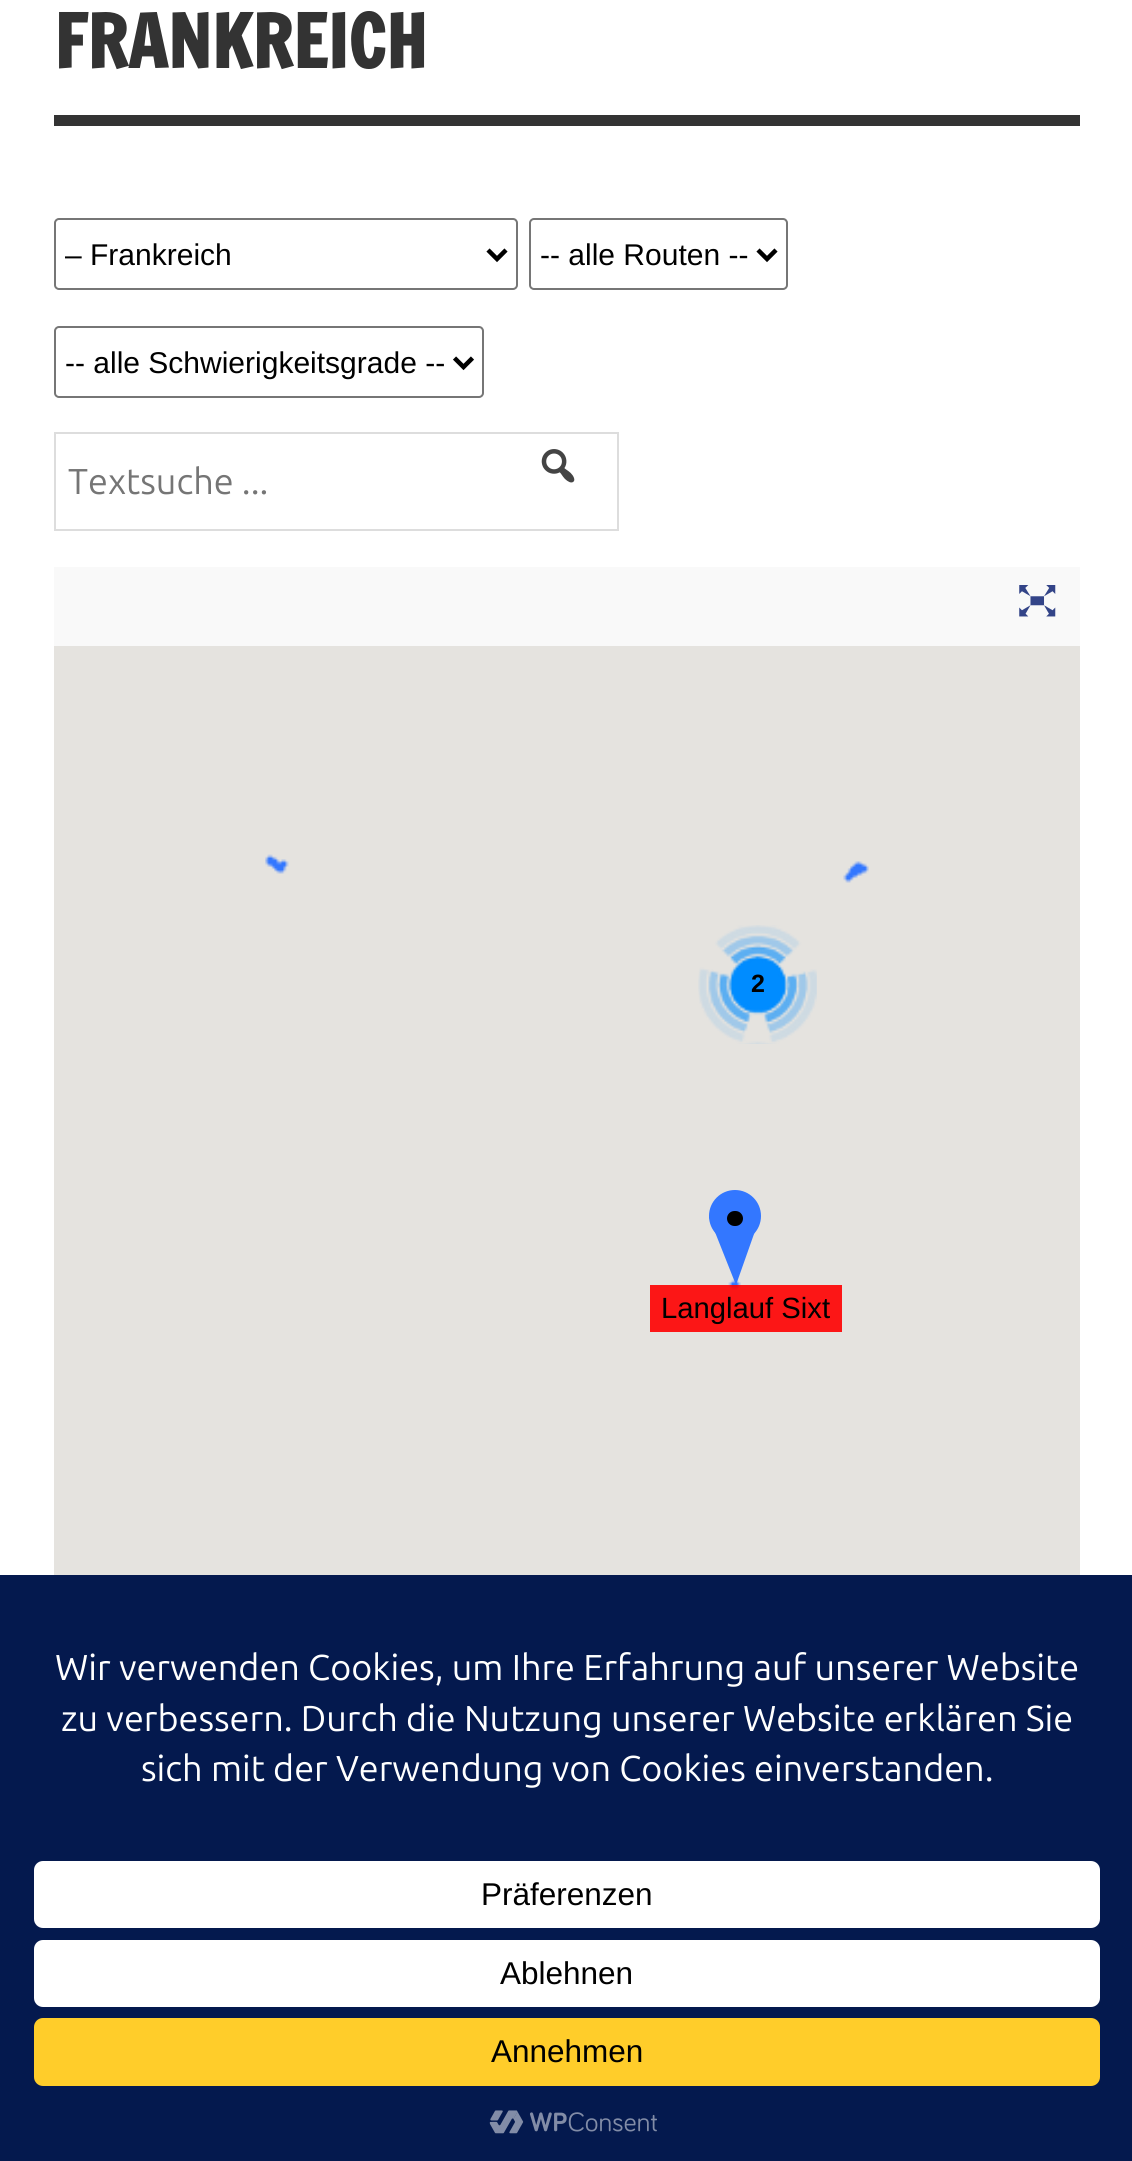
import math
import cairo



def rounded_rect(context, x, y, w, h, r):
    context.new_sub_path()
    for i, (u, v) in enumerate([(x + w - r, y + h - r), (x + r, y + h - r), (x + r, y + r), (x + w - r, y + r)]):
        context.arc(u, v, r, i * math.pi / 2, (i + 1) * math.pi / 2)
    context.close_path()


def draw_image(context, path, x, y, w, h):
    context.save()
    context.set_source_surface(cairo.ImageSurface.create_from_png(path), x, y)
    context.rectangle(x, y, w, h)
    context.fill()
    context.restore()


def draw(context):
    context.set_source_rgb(1, 1, 1)
    context.paint()
    context.set_source_rgb(51 / 255, 51 / 255, 51 / 255)
    context.rectangle(54, 115, 1026, 11)
    context.fill()
    rounded_rect(context, 55, 219, 462, 70, 4)
    context.set_source_rgb(118 / 255, 118 / 255, 118 / 255)
    context.stroke()
    context.new_path()
    context.move_to(488, 250)
    context.line_to(497, 259)
    context.line_to(506, 250)
    context.set_source_rgb(0, 0, 0)
    context.set_line_width(4.5)
    context.stroke()
    rounded_rect(context, 530, 219, 257, 70, 4)
    context.set_source_rgb(118 / 255, 118 / 255, 118 / 255)
    context.set_line_width(2)
    context.stroke()
    context.new_path()
    context.move_to(758, 250)
    context.line_to(767, 259)
    context.line_to(776, 250)
    context.set_source_rgb(0, 0, 0)
    context.set_line_width(4.5)
    context.stroke()
    rounded_rect(context, 55, 327, 428, 70, 4)
    context.set_source_rgb(118 / 255, 118 / 255, 118 / 255)
    context.set_line_width(2)
    context.stroke()
    context.new_path()
    context.move_to(454.5, 358)
    context.line_to(463.5, 367)
    context.line_to(472.5, 358)
    context.set_source_rgb(0, 0, 0)
    context.set_line_width(4.5)
    context.stroke()
    context.rectangle(55, 433, 563, 97)
    context.set_source_rgb(221 / 255, 221 / 255, 221 / 255)
    context.set_line_width(2)
    context.stroke()
    draw_image(context, "images/1.png", 541, 449, 34, 34)
    context.set_source_rgb(249 / 255, 249 / 255, 249 / 255)
    context.rectangle(54, 567, 1026, 79)
    context.fill()
    draw_image(context, "images/2.png", 1019, 585, 37, 32)
    context.set_source_rgb(229 / 255, 227 / 255, 223 / 255)
    context.rectangle(54, 646, 1026, 929)
    context.fill()
    draw_image(context, "images/3.png", 265, 854, 24, 20)
    draw_image(context, "images/4.png", 728, 861, 141, 429)
    draw_image(context, "images/5.png", 698, 925, 119, 119)
    context.set_source_rgb(51 / 255, 119 / 255, 1)
    context.arc(735, 1216, 26, 0, 2 * math.pi)
    context.fill()
    context.new_path()
    context.move_to(709, 1217)
    context.line_to(760, 1217)
    context.line_to(736, 1285)
    context.close_path()
    context.fill()
    context.set_source_rgb(0, 0, 0)
    rounded_rect(context, 727, 1211, 16, 15, 7.5)
    context.fill()
    context.set_source_rgba(1, 0, 0, 0.9)
    context.rectangle(650, 1285, 192, 47)
    context.fill()
    context.set_source_rgb(4 / 255, 25 / 255, 78 / 255)
    context.rectangle(0, 1575, 1132, 586)
    context.fill()
    context.set_source_rgb(1, 1, 1)
    rounded_rect(context, 34, 1861, 1066, 67, 9)
    context.fill()
    rounded_rect(context, 34, 1940, 1066, 67, 9)
    context.fill()
    context.set_source_rgb(1, 205 / 255, 42 / 255)
    rounded_rect(context, 34, 2018, 1066, 68, 9)
    context.fill()
    draw_image(context, "images/6.png", 489, 2110, 168, 24)
    context.select_font_face("Francois One", cairo.FontSlant.NORMAL, cairo.FontWeight.BOLD)
    context.set_font_size(72)
    context.set_source_rgb(51 / 255, 51 / 255, 51 / 255)
    context.move_to(54, 68)
    context.show_text("FRANKREICH")
    context.select_font_face("Liberation Sans")
    context.set_font_size(30)
    context.set_source_rgb(0, 0, 0)
    context.move_to(65, 265)
    context.show_text("– Frankreich")
    context.move_to(540, 265)
    context.show_text("-- alle Routen --")
    context.move_to(65, 373)
    context.show_text("-- alle Schwierigkeitsgrade --")
    context.select_font_face("Ubuntu")
    context.set_font_size(36)
    context.set_source_rgb(117 / 255, 117 / 255, 117 / 255)
    context.move_to(68, 494)
    context.show_text("Textsuche ...")
    context.select_font_face("Liberation Sans", cairo.FontSlant.NORMAL, cairo.FontWeight.BOLD)
    context.set_font_size(25)
    context.set_source_rgb(0, 0, 0)
    context.move_to(751, 992)
    context.show_text("2")
    context.select_font_face("Liberation Sans")
    context.set_font_size(29.25)
    context.move_to(661, 1318)
    context.show_text("Langlauf Sixt")
    context.select_font_face("Ubuntu")
    context.set_font_size(36)
    context.set_source_rgb(1, 1, 1)
    context.move_to(55, 1680)
    context.show_text("Wir verwenden Cookies, um Ihre Erfahrung auf unserer Website")
    context.move_to(61, 1731)
    context.show_text("zu verbessern. Durch die Nutzung unserer Website erklären Sie")
    context.move_to(141, 1781)
    context.show_text("sich mit der Verwendung von Cookies einverstanden.")
    context.select_font_face("Liberation Sans")
    context.set_font_size(31.5)
    context.set_source_rgb(0, 0, 0)
    context.move_to(481, 1905)
    context.show_text("Präferenzen")
    context.move_to(500, 1984)
    context.show_text("Ablehnen")
    context.move_to(491, 2062)
    context.show_text("Annehmen")


surface = cairo.ImageSurface(cairo.Format.RGB24, 1132, 2161)
context = cairo.Context(surface)
options = cairo.FontOptions()
options.set_hint_metrics(cairo.HintMetrics.OFF)
options.set_hint_style(cairo.HintStyle.NONE)
context.set_font_options(options)
context.set_miter_limit(4)
draw(context)
surface.write_to_png("out.png")
